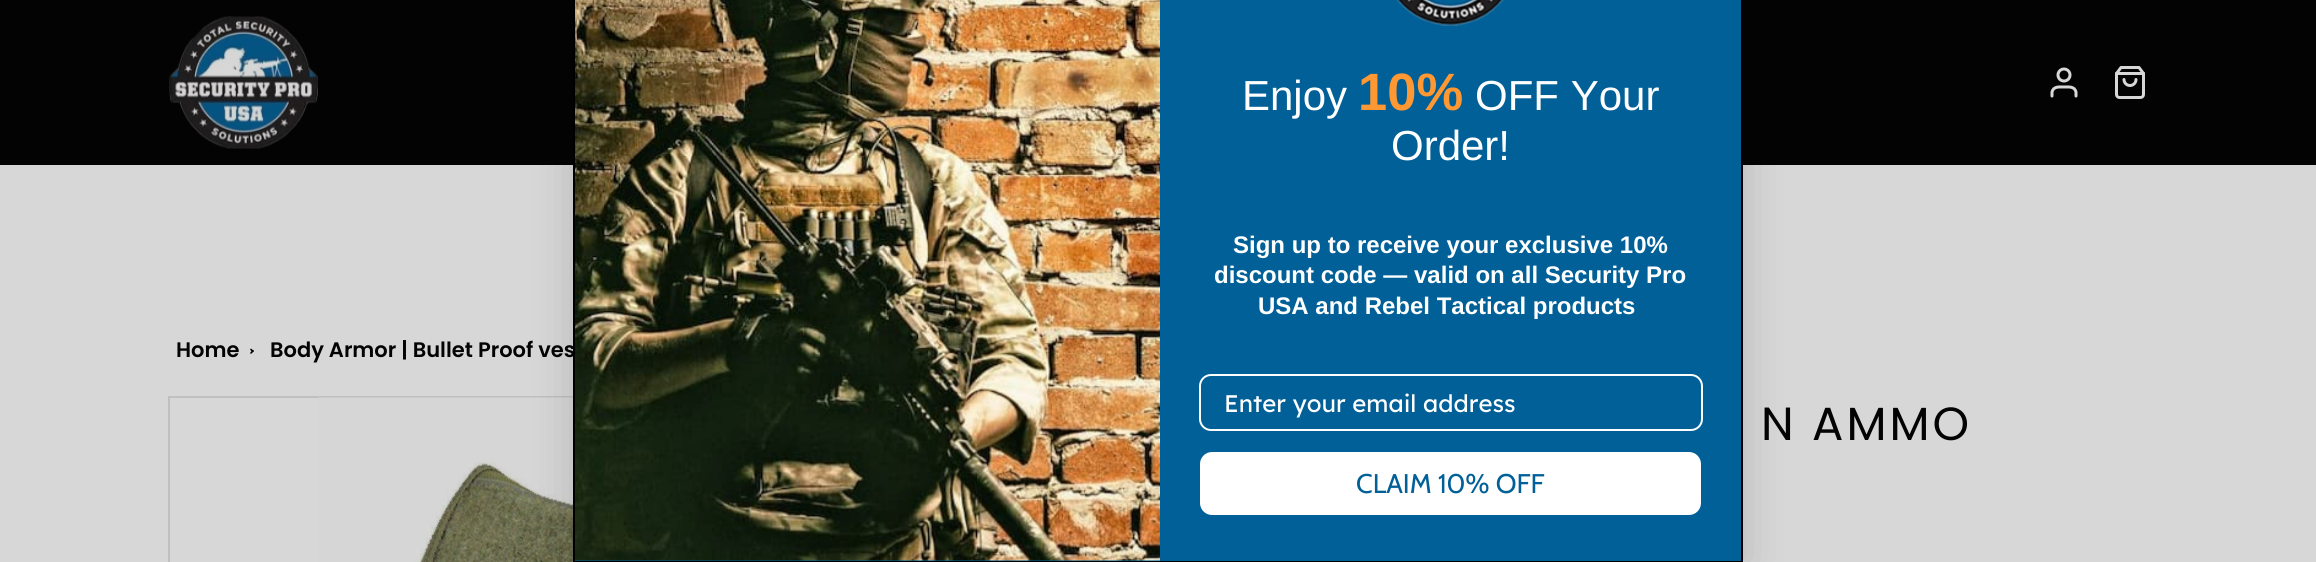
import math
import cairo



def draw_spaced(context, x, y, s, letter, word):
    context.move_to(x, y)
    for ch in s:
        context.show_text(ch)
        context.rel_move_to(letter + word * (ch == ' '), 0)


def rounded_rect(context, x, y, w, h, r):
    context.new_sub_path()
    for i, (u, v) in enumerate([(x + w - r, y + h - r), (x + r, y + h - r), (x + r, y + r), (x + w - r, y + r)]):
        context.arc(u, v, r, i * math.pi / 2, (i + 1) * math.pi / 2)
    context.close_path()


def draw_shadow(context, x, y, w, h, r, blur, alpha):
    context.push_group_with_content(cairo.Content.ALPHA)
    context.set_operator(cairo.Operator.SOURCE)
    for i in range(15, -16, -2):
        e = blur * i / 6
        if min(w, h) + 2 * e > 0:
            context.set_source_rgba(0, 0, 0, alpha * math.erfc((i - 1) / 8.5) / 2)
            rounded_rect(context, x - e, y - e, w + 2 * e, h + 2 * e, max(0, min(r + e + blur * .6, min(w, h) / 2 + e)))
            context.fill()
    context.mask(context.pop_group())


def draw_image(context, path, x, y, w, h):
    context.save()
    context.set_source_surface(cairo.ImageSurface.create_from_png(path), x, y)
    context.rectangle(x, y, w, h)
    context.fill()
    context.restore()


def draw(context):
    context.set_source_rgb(215 / 255, 215 / 255, 215 / 255)
    context.paint()
    context.set_source_rgb(3 / 255, 3 / 255, 3 / 255)
    context.rectangle(0, 0, 2316, 165)
    context.fill()
    draw_image(context, "images/1.png", 169, 16, 149, 133)
    context.new_path()
    context.move_to(2076, 96)
    context.line_to(2076, 92)
    context.curve_to(2074.5, 86, 2068.5, 87, 2064, 87)
    context.curve_to(2059.5, 87, 2053.5, 86, 2052, 92)
    context.line_to(2052, 96)
    context.set_source_rgb(215 / 255, 215 / 255, 215 / 255)
    context.set_line_width(3)
    context.set_line_cap(cairo.LineCap.ROUND)
    context.set_line_join(cairo.LineJoin.ROUND)
    context.stroke()
    context.arc(2064, 75, 6, 0, 2 * math.pi)
    context.set_line_cap(cairo.LineCap.BUTT)
    context.set_line_join(cairo.LineJoin.MITER)
    context.stroke()
    draw_image(context, "images/2.png", 2115, 66, 30, 33)
    context.rectangle(169, 397, 970, 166)
    context.set_source_rgb(192 / 255, 192 / 255, 192 / 255)
    context.set_line_width(2)
    context.stroke()
    draw_image(context, "images/5.png", 318, 397, 255, 165)
    context.set_source_rgb(0, 0, 0)
    draw_shadow(context, 573, -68, 1170, 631, 0, 22.5, 0.15)
    context.set_source_rgb(3 / 255, 3 / 255, 3 / 255)
    context.new_path()
    context.move_to(251, 348.5)
    context.line_to(254, 351)
    context.line_to(252.5, 352.5)
    context.line_to(250, 349.5)
    context.close_path()
    context.fill()
    context.new_path()
    context.move_to(252.5, 350)
    context.line_to(254, 351)
    context.line_to(251, 354)
    context.line_to(250, 353)
    context.close_path()
    context.fill()
    context.select_font_face("Poppins SemiBold")
    context.set_font_size(21)
    context.move_to(176, 357)
    context.show_text("Home")
    context.move_to(270, 357)
    context.show_text("Body Armor | Bullet Proof ves")
    context.set_source_rgb(0, 96 / 255, 151 / 255)
    context.rectangle(574, -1, 1168, 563)
    context.fill_preserve()
    context.set_source_rgb(0, 0, 0)
    context.stroke()
    context.set_source_rgb(1, 1, 1)
    rounded_rect(context, 1201.5, 453.5, 498, 60, 10.5)
    context.fill_preserve()
    context.set_line_width(3)
    context.stroke()
    context.select_font_face("Cabin")
    context.set_font_size(27)
    context.set_source_rgb(0, 96 / 255, 151 / 255)
    context.move_to(1356, 493)
    context.show_text("CLAIM 10% OFF")
    rounded_rect(context, 1200, 375, 502, 55, 11)
    context.set_source_rgb(252 / 255, 253 / 255, 254 / 255)
    context.set_line_width(2)
    context.stroke()
    context.select_font_face("Lexend")
    context.set_font_size(24)
    context.set_source_rgb(1, 1, 1)
    context.move_to(1224, 412)
    context.show_text("Enter your email address")
    context.select_font_face("Liberation Sans", cairo.FontSlant.NORMAL, cairo.FontWeight.BOLD)
    context.move_to(1258, 314)
    context.show_text("USA and Rebel Tactical products")
    context.move_to(1214, 283)
    context.show_text("discount code — valid on all Security Pro")
    context.move_to(1233, 253)
    context.show_text("Sign up to receive your exclusive 10%")
    context.select_font_face("Liberation Sans")
    context.set_font_size(42)
    context.move_to(1391, 160)
    context.show_text("Order!")
    context.move_to(1475, 110)
    context.show_text("OFF Your")
    context.select_font_face("Liberation Sans", cairo.FontSlant.NORMAL, cairo.FontWeight.BOLD)
    context.set_font_size(52.5)
    context.set_source_rgb(1, 152 / 255, 51 / 255)
    context.move_to(1358, 110)
    context.show_text("10%")
    context.select_font_face("Liberation Sans")
    context.set_font_size(42)
    context.set_source_rgb(1, 1, 1)
    context.move_to(1242, 110)
    context.show_text("Enjoy")
    draw_image(context, "images/4.png", 1396, 0, 108, 26)
    draw_image(context, "images/3.png", 575, 0, 585, 561)
    context.select_font_face("Poppins")
    context.set_font_size(46.5)
    context.set_source_rgb(3 / 255, 3 / 255, 3 / 255)
    draw_spaced(context, 1761, 440, "N AMMO", 3, 0)


surface = cairo.ImageSurface(cairo.Format.RGB24, 2316, 562)
context = cairo.Context(surface)
options = cairo.FontOptions()
options.set_hint_metrics(cairo.HintMetrics.OFF)
options.set_hint_style(cairo.HintStyle.NONE)
context.set_font_options(options)
context.set_miter_limit(4)
draw(context)
surface.write_to_png("out.png")
